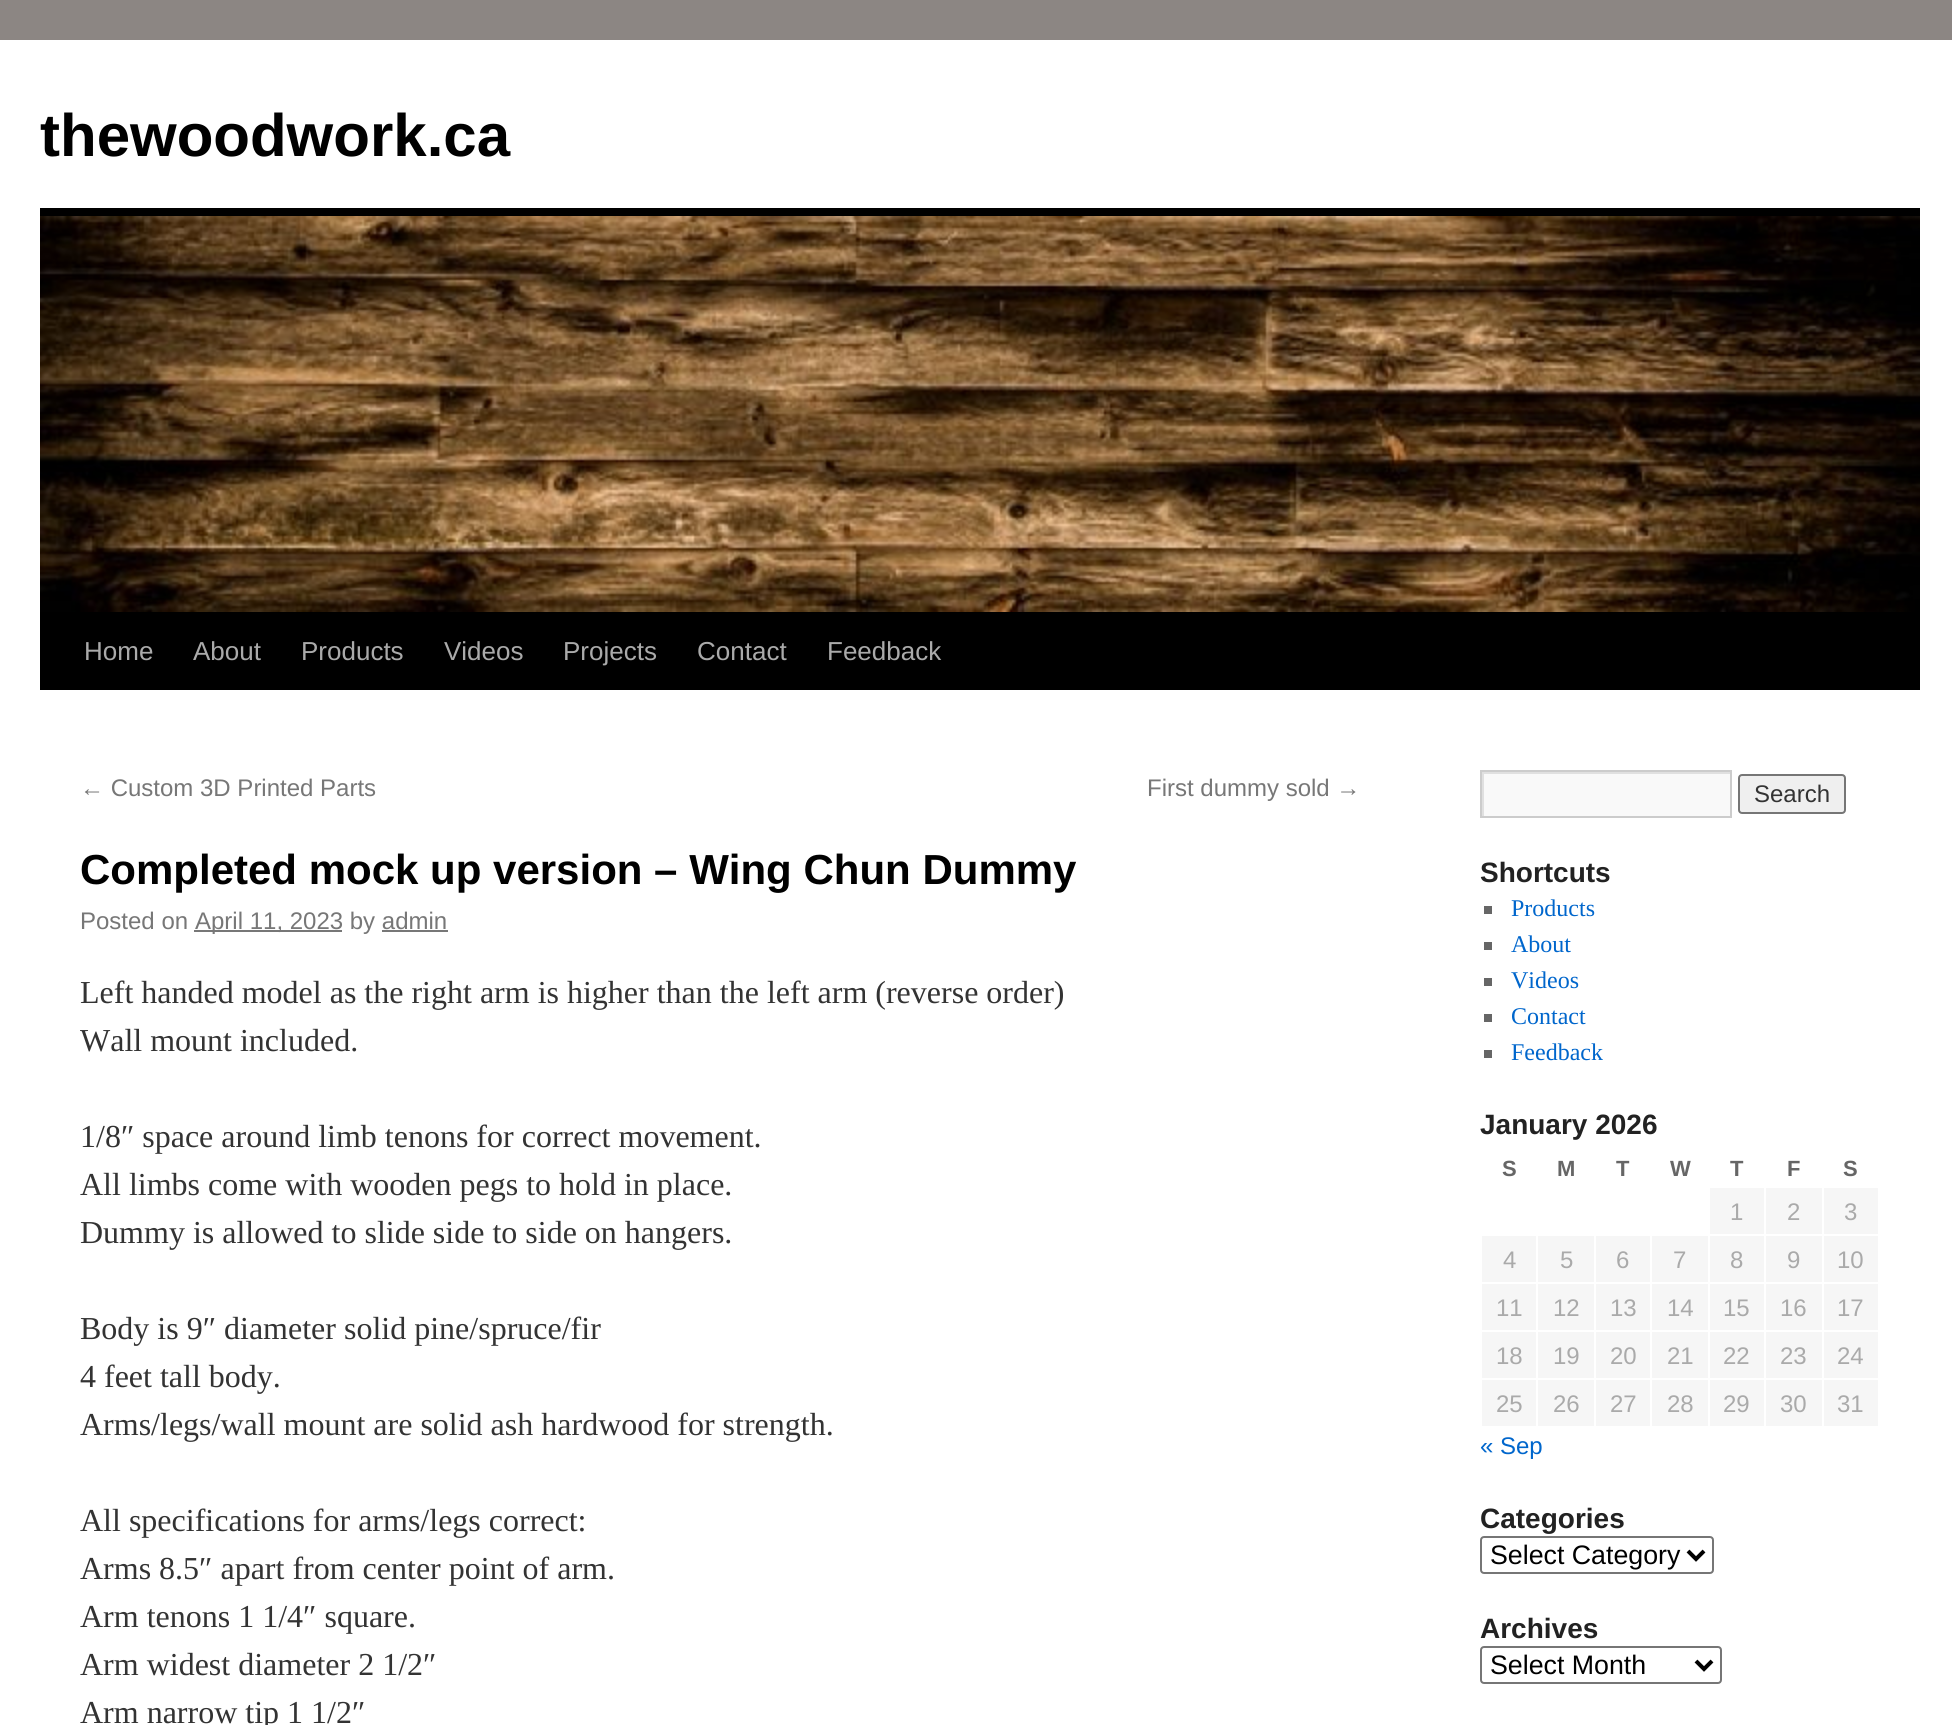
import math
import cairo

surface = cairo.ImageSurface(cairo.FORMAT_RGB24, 1952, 1725)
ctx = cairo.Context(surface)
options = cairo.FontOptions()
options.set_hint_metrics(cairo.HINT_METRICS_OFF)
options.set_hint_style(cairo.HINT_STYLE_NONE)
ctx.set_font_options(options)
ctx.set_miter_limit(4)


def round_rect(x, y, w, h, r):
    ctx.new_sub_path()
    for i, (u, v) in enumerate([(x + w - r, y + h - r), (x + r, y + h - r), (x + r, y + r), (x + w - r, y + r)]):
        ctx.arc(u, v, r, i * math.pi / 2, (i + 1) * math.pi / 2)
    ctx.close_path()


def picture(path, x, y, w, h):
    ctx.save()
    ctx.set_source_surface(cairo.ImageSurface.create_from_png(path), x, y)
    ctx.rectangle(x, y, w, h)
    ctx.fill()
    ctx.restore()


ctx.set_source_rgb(0.549, 0.525, 0.514)
ctx.paint()
ctx.set_source_rgb(1, 1, 1)
ctx.rectangle(0, 40, 1952, 1685)
ctx.fill()
ctx.select_font_face("Liberation Sans", cairo.FONT_SLANT_NORMAL, cairo.FONT_WEIGHT_BOLD)
ctx.set_font_size(60)
ctx.set_source_rgb(0, 0, 0)
ctx.move_to(40, 156)
ctx.show_text("thewoodwork.ca")
ctx.rectangle(40, 208, 1880, 8)
ctx.fill()
ctx.rectangle(40, 612, 1880, 78)
ctx.fill()
picture("img1.png", 40, 216, 1880, 396)
ctx.select_font_face("Liberation Sans")
ctx.set_font_size(26)
ctx.set_source_rgb(0.667, 0.667, 0.667)
ctx.move_to(84, 660)
ctx.show_text("Home")
ctx.move_to(193, 660)
ctx.show_text("About")
ctx.move_to(301, 660)
ctx.show_text("Products")
ctx.move_to(444, 660)
ctx.show_text("Videos")
ctx.move_to(563, 660)
ctx.show_text("Projects")
ctx.move_to(697, 660)
ctx.show_text("Contact")
ctx.move_to(827, 660)
ctx.show_text("Feedback")
ctx.set_font_size(24)
ctx.set_source_rgb(0.467, 0.467, 0.467)
ctx.move_to(80, 796)
ctx.show_text("← Custom 3D Printed Parts")
ctx.move_to(1147, 796)
ctx.show_text("First dummy sold →")
ctx.select_font_face("Liberation Sans", cairo.FONT_SLANT_NORMAL, cairo.FONT_WEIGHT_BOLD)
ctx.set_font_size(42)
ctx.set_source_rgb(0, 0, 0)
ctx.move_to(80, 884)
ctx.show_text("Completed mock up version – Wing Chun Dummy")
ctx.select_font_face("Liberation Sans")
ctx.set_font_size(24)
ctx.set_source_rgb(0.467, 0.467, 0.467)
ctx.move_to(80, 929)
ctx.show_text("Posted on")
ctx.rectangle(194, 930, 148, 2)
ctx.fill()
ctx.move_to(195, 929)
ctx.show_text("April 11, 2023 by admin")
ctx.rectangle(382, 930, 66, 2)
ctx.fill()
ctx.select_font_face("Liberation Serif")
ctx.set_font_size(32)
ctx.set_source_rgb(0.2, 0.2, 0.2)
ctx.move_to(80, 1003)
ctx.show_text("Left handed model as the right arm is higher than the left arm (reverse order)")
ctx.move_to(80, 1051)
ctx.show_text("Wall mount included.")
ctx.move_to(80, 1147)
ctx.show_text("1/8″ space around limb tenons for correct movement.")
ctx.move_to(80, 1195)
ctx.show_text("All limbs come with wooden pegs to hold in place.")
ctx.move_to(80, 1243)
ctx.show_text("Dummy is allowed to slide side to side on hangers.")
ctx.move_to(80, 1339)
ctx.show_text("Body is 9″ diameter solid pine/spruce/fir")
ctx.move_to(80, 1387)
ctx.show_text("4 feet tall body.")
ctx.move_to(80, 1435)
ctx.show_text("Arms/legs/wall mount are solid ash hardwood for strength.")
ctx.move_to(80, 1531)
ctx.show_text("All specifications for arms/legs correct:")
ctx.move_to(80, 1579)
ctx.show_text("Arms 8.5″ apart from center point of arm.")
ctx.move_to(80, 1627)
ctx.show_text("Arm tenons 1 1/4″ square.")
ctx.move_to(80, 1675)
ctx.show_text("Arm widest diameter 2 1/2″")
ctx.move_to(80, 1723)
ctx.show_text("Arm narrow tip 1 1/2″")
ctx.set_source_rgb(0.976, 0.976, 0.976)
ctx.rectangle(1484, 774, 246, 42)
ctx.fill()
ctx.save()
ctx.rectangle(1482, 772, 248, 44)
ctx.clip()
ctx.set_source_rgb(0.878, 0.878, 0.878)
ctx.set_fill_rule(cairo.FILL_RULE_EVEN_ODD)
ctx.new_path()
ctx.move_to(1284, 574)
ctx.line_to(1928, 574)
ctx.line_to(1928, 1014)
ctx.line_to(1284, 1014)
ctx.close_path()
ctx.move_to(1484, 774)
ctx.line_to(1732, 774)
ctx.line_to(1732, 818)
ctx.line_to(1484, 818)
ctx.close_path()
ctx.fill()
ctx.restore()
ctx.rectangle(1481, 771, 250, 46)
ctx.set_source_rgb(0.8, 0.8, 0.8)
ctx.stroke()
ctx.set_source_rgb(0.937, 0.937, 0.937)
round_rect(1739, 775, 106, 38, 3)
ctx.fill_preserve()
ctx.set_source_rgb(0.463, 0.463, 0.463)
ctx.stroke()
ctx.select_font_face("Liberation Sans")
ctx.set_font_size(24)
ctx.set_source_rgb(0.2, 0.2, 0.2)
ctx.move_to(1754, 802)
ctx.show_text("Search")
ctx.select_font_face("Liberation Sans", cairo.FONT_SLANT_NORMAL, cairo.FONT_WEIGHT_BOLD)
ctx.set_font_size(28)
ctx.set_source_rgb(0.133, 0.133, 0.133)
ctx.move_to(1480, 882)
ctx.show_text("Shortcuts")
ctx.set_source_rgb(0.4, 0.4, 0.4)
ctx.rectangle(1484, 906, 8, 8)
ctx.fill()
ctx.select_font_face("Liberation Serif")
ctx.set_font_size(24)
ctx.set_source_rgb(0, 0.4, 0.8)
ctx.move_to(1511, 916)
ctx.show_text("Products")
ctx.set_source_rgb(0.4, 0.4, 0.4)
ctx.rectangle(1484, 942, 8, 8)
ctx.fill()
ctx.set_source_rgb(0, 0.4, 0.8)
ctx.move_to(1511, 952)
ctx.show_text("About")
ctx.set_source_rgb(0.4, 0.4, 0.4)
ctx.rectangle(1484, 978, 8, 8)
ctx.fill()
ctx.set_source_rgb(0, 0.4, 0.8)
ctx.move_to(1511, 988)
ctx.show_text("Videos")
ctx.set_source_rgb(0.4, 0.4, 0.4)
ctx.rectangle(1484, 1014, 8, 8)
ctx.fill()
ctx.set_source_rgb(0, 0.4, 0.8)
ctx.move_to(1511, 1024)
ctx.show_text("Contact")
ctx.set_source_rgb(0.4, 0.4, 0.4)
ctx.rectangle(1484, 1050, 8, 8)
ctx.fill()
ctx.set_source_rgb(0, 0.4, 0.8)
ctx.move_to(1511, 1060)
ctx.show_text("Feedback")
ctx.select_font_face("Liberation Sans", cairo.FONT_SLANT_NORMAL, cairo.FONT_WEIGHT_BOLD)
ctx.set_font_size(28)
ctx.set_source_rgb(0.133, 0.133, 0.133)
ctx.move_to(1480, 1134)
ctx.show_text("January 2026")
ctx.set_font_size(22)
ctx.set_source_rgb(0.4, 0.4, 0.4)
ctx.move_to(1502, 1176)
ctx.show_text("S")
ctx.move_to(1557, 1176)
ctx.show_text("M")
ctx.move_to(1616, 1176)
ctx.show_text("T")
ctx.move_to(1670, 1176)
ctx.show_text("W")
ctx.move_to(1730, 1176)
ctx.show_text("T")
ctx.move_to(1787, 1176)
ctx.show_text("F")
ctx.move_to(1843, 1176)
ctx.show_text("S")
ctx.set_source_rgb(0.961, 0.961, 0.961)
ctx.rectangle(1710, 1188, 54, 46)
ctx.fill()
ctx.select_font_face("Liberation Sans")
ctx.set_font_size(24)
ctx.set_source_rgb(0.667, 0.667, 0.667)
ctx.move_to(1730, 1220)
ctx.show_text("1")
ctx.set_source_rgb(0.961, 0.961, 0.961)
ctx.rectangle(1766, 1188, 56, 46)
ctx.fill()
ctx.set_source_rgb(0.667, 0.667, 0.667)
ctx.move_to(1787, 1220)
ctx.show_text("2")
ctx.set_source_rgb(0.961, 0.961, 0.961)
ctx.rectangle(1824, 1188, 54, 46)
ctx.fill()
ctx.set_source_rgb(0.667, 0.667, 0.667)
ctx.move_to(1844, 1220)
ctx.show_text("3")
ctx.set_source_rgb(0.961, 0.961, 0.961)
ctx.rectangle(1482, 1236, 54, 46)
ctx.fill()
ctx.set_source_rgb(0.667, 0.667, 0.667)
ctx.move_to(1503, 1268)
ctx.show_text("4")
ctx.set_source_rgb(0.961, 0.961, 0.961)
ctx.rectangle(1538, 1236, 56, 46)
ctx.fill()
ctx.set_source_rgb(0.667, 0.667, 0.667)
ctx.move_to(1560, 1268)
ctx.show_text("5")
ctx.set_source_rgb(0.961, 0.961, 0.961)
ctx.rectangle(1596, 1236, 54, 46)
ctx.fill()
ctx.set_source_rgb(0.667, 0.667, 0.667)
ctx.move_to(1616, 1268)
ctx.show_text("6")
ctx.set_source_rgb(0.961, 0.961, 0.961)
ctx.rectangle(1652, 1236, 56, 46)
ctx.fill()
ctx.set_source_rgb(0.667, 0.667, 0.667)
ctx.move_to(1673, 1268)
ctx.show_text("7")
ctx.set_source_rgb(0.961, 0.961, 0.961)
ctx.rectangle(1710, 1236, 54, 46)
ctx.fill()
ctx.set_source_rgb(0.667, 0.667, 0.667)
ctx.move_to(1730, 1268)
ctx.show_text("8")
ctx.set_source_rgb(0.961, 0.961, 0.961)
ctx.rectangle(1766, 1236, 56, 46)
ctx.fill()
ctx.set_source_rgb(0.667, 0.667, 0.667)
ctx.move_to(1787, 1268)
ctx.show_text("9")
ctx.set_source_rgb(0.961, 0.961, 0.961)
ctx.rectangle(1824, 1236, 54, 46)
ctx.fill()
ctx.set_source_rgb(0.667, 0.667, 0.667)
ctx.move_to(1837, 1268)
ctx.show_text("10")
ctx.set_source_rgb(0.961, 0.961, 0.961)
ctx.rectangle(1482, 1284, 54, 46)
ctx.fill()
ctx.set_source_rgb(0.667, 0.667, 0.667)
ctx.move_to(1496, 1316)
ctx.show_text("11")
ctx.set_source_rgb(0.961, 0.961, 0.961)
ctx.rectangle(1538, 1284, 56, 46)
ctx.fill()
ctx.set_source_rgb(0.667, 0.667, 0.667)
ctx.move_to(1553, 1316)
ctx.show_text("12")
ctx.set_source_rgb(0.961, 0.961, 0.961)
ctx.rectangle(1596, 1284, 54, 46)
ctx.fill()
ctx.set_source_rgb(0.667, 0.667, 0.667)
ctx.move_to(1610, 1316)
ctx.show_text("13")
ctx.set_source_rgb(0.961, 0.961, 0.961)
ctx.rectangle(1652, 1284, 56, 46)
ctx.fill()
ctx.set_source_rgb(0.667, 0.667, 0.667)
ctx.move_to(1667, 1316)
ctx.show_text("14")
ctx.set_source_rgb(0.961, 0.961, 0.961)
ctx.rectangle(1710, 1284, 54, 46)
ctx.fill()
ctx.set_source_rgb(0.667, 0.667, 0.667)
ctx.move_to(1723, 1316)
ctx.show_text("15")
ctx.set_source_rgb(0.961, 0.961, 0.961)
ctx.rectangle(1766, 1284, 56, 46)
ctx.fill()
ctx.set_source_rgb(0.667, 0.667, 0.667)
ctx.move_to(1780, 1316)
ctx.show_text("16")
ctx.set_source_rgb(0.961, 0.961, 0.961)
ctx.rectangle(1824, 1284, 54, 46)
ctx.fill()
ctx.set_source_rgb(0.667, 0.667, 0.667)
ctx.move_to(1837, 1316)
ctx.show_text("17")
ctx.set_source_rgb(0.961, 0.961, 0.961)
ctx.rectangle(1482, 1332, 54, 46)
ctx.fill()
ctx.set_source_rgb(0.667, 0.667, 0.667)
ctx.move_to(1496, 1364)
ctx.show_text("18")
ctx.set_source_rgb(0.961, 0.961, 0.961)
ctx.rectangle(1538, 1332, 56, 46)
ctx.fill()
ctx.set_source_rgb(0.667, 0.667, 0.667)
ctx.move_to(1553, 1364)
ctx.show_text("19")
ctx.set_source_rgb(0.961, 0.961, 0.961)
ctx.rectangle(1596, 1332, 54, 46)
ctx.fill()
ctx.set_source_rgb(0.667, 0.667, 0.667)
ctx.move_to(1610, 1364)
ctx.show_text("20")
ctx.set_source_rgb(0.961, 0.961, 0.961)
ctx.rectangle(1652, 1332, 56, 46)
ctx.fill()
ctx.set_source_rgb(0.667, 0.667, 0.667)
ctx.move_to(1667, 1364)
ctx.show_text("21")
ctx.set_source_rgb(0.961, 0.961, 0.961)
ctx.rectangle(1710, 1332, 54, 46)
ctx.fill()
ctx.set_source_rgb(0.667, 0.667, 0.667)
ctx.move_to(1723, 1364)
ctx.show_text("22")
ctx.set_source_rgb(0.961, 0.961, 0.961)
ctx.rectangle(1766, 1332, 56, 46)
ctx.fill()
ctx.set_source_rgb(0.667, 0.667, 0.667)
ctx.move_to(1780, 1364)
ctx.show_text("23")
ctx.set_source_rgb(0.961, 0.961, 0.961)
ctx.rectangle(1824, 1332, 54, 46)
ctx.fill()
ctx.set_source_rgb(0.667, 0.667, 0.667)
ctx.move_to(1837, 1364)
ctx.show_text("24")
ctx.set_source_rgb(0.961, 0.961, 0.961)
ctx.rectangle(1482, 1380, 54, 46)
ctx.fill()
ctx.set_source_rgb(0.667, 0.667, 0.667)
ctx.move_to(1496, 1412)
ctx.show_text("25")
ctx.set_source_rgb(0.961, 0.961, 0.961)
ctx.rectangle(1538, 1380, 56, 46)
ctx.fill()
ctx.set_source_rgb(0.667, 0.667, 0.667)
ctx.move_to(1553, 1412)
ctx.show_text("26")
ctx.set_source_rgb(0.961, 0.961, 0.961)
ctx.rectangle(1596, 1380, 54, 46)
ctx.fill()
ctx.set_source_rgb(0.667, 0.667, 0.667)
ctx.move_to(1610, 1412)
ctx.show_text("27")
ctx.set_source_rgb(0.961, 0.961, 0.961)
ctx.rectangle(1652, 1380, 56, 46)
ctx.fill()
ctx.set_source_rgb(0.667, 0.667, 0.667)
ctx.move_to(1667, 1412)
ctx.show_text("28")
ctx.set_source_rgb(0.961, 0.961, 0.961)
ctx.rectangle(1710, 1380, 54, 46)
ctx.fill()
ctx.set_source_rgb(0.667, 0.667, 0.667)
ctx.move_to(1723, 1412)
ctx.show_text("29")
ctx.set_source_rgb(0.961, 0.961, 0.961)
ctx.rectangle(1766, 1380, 56, 46)
ctx.fill()
ctx.set_source_rgb(0.667, 0.667, 0.667)
ctx.move_to(1780, 1412)
ctx.show_text("30")
ctx.set_source_rgb(0.961, 0.961, 0.961)
ctx.rectangle(1824, 1380, 54, 46)
ctx.fill()
ctx.set_source_rgb(0.667, 0.667, 0.667)
ctx.move_to(1837, 1412)
ctx.show_text("31")
ctx.set_source_rgb(0, 0.4, 0.8)
ctx.move_to(1480, 1454)
ctx.show_text("« Sep")
ctx.select_font_face("Liberation Sans", cairo.FONT_SLANT_NORMAL, cairo.FONT_WEIGHT_BOLD)
ctx.set_font_size(28)
ctx.set_source_rgb(0.133, 0.133, 0.133)
ctx.move_to(1480, 1528)
ctx.show_text("Categories")
round_rect(1481, 1537, 232, 36, 3)
ctx.set_source_rgb(0.463, 0.463, 0.463)
ctx.stroke()
ctx.new_path()
ctx.move_to(1688, 1551)
ctx.line_to(1696, 1559)
ctx.line_to(1704, 1551)
ctx.set_source_rgb(0, 0, 0)
ctx.set_line_width(4)
ctx.stroke()
ctx.select_font_face("Liberation Sans")
ctx.set_font_size(26.75)
ctx.move_to(1490, 1564)
ctx.show_text("Select Category")
ctx.select_font_face("Liberation Sans", cairo.FONT_SLANT_NORMAL, cairo.FONT_WEIGHT_BOLD)
ctx.set_font_size(28)
ctx.set_source_rgb(0.133, 0.133, 0.133)
ctx.move_to(1480, 1638)
ctx.show_text("Archives")
round_rect(1481, 1647, 240, 36, 3)
ctx.set_source_rgb(0.463, 0.463, 0.463)
ctx.set_line_width(2)
ctx.stroke()
ctx.new_path()
ctx.move_to(1696, 1661)
ctx.line_to(1704, 1669)
ctx.line_to(1712, 1661)
ctx.set_source_rgb(0, 0, 0)
ctx.set_line_width(4)
ctx.stroke()
ctx.select_font_face("Liberation Sans")
ctx.set_font_size(26.75)
ctx.move_to(1490, 1674)
ctx.show_text("Select Month")
surface.write_to_png("page.png")
